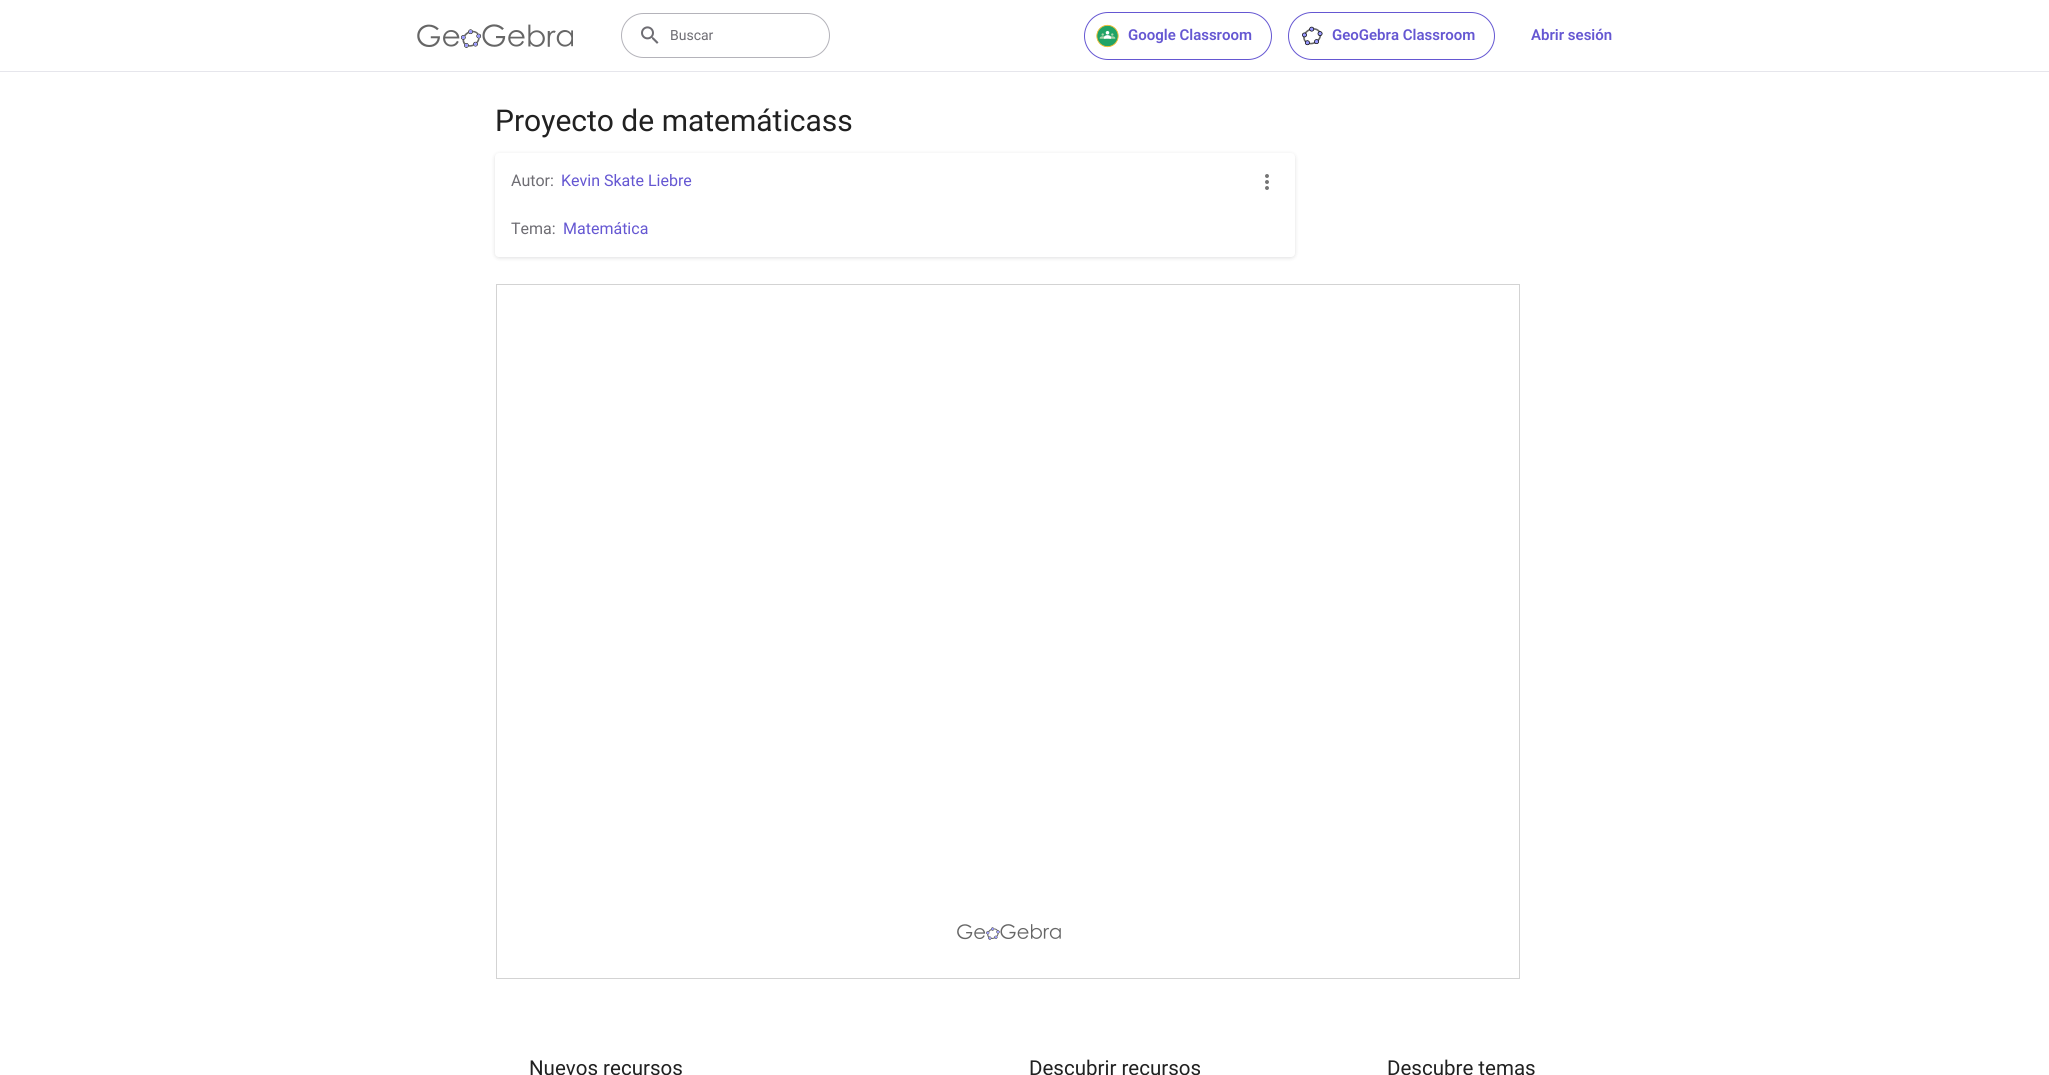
import math
import cairo

surface = cairo.ImageSurface(cairo.FORMAT_RGB24, 2049, 1075)
ctx = cairo.Context(surface)
options = cairo.FontOptions()
options.set_hint_metrics(cairo.HINT_METRICS_OFF)
options.set_hint_style(cairo.HINT_STYLE_NONE)
ctx.set_font_options(options)
ctx.set_miter_limit(4)


def round_rect(x, y, w, h, r):
    ctx.new_sub_path()
    for i, (u, v) in enumerate([(x + w - r, y + h - r), (x + r, y + h - r), (x + r, y + r), (x + w - r, y + r)]):
        ctx.arc(u, v, r, i * math.pi / 2, (i + 1) * math.pi / 2)
    ctx.close_path()


def shadow(x, y, w, h, r, blur, alpha):
    ctx.push_group_with_content(cairo.CONTENT_ALPHA)
    ctx.set_operator(cairo.OPERATOR_SOURCE)
    for i in range(15, -16, -2):
        e = blur * i / 6
        if min(w, h) + 2 * e > 0:
            ctx.set_source_rgba(0, 0, 0, alpha * math.erfc((i - 1) / 8.5) / 2)
            round_rect(x - e, y - e, w + 2 * e, h + 2 * e, max(0, min(r + e + blur * .6, min(w, h) / 2 + e)))
            ctx.fill()
    ctx.mask(ctx.pop_group())


def picture(path, x, y, w, h):
    ctx.save()
    ctx.set_source_surface(cairo.ImageSurface.create_from_png(path), x, y)
    ctx.rectangle(x, y, w, h)
    ctx.fill()
    ctx.restore()


ctx.set_source_rgb(1, 1, 1)
ctx.paint()
ctx.set_source_rgb(0.902, 0.902, 0.922)
ctx.rectangle(0, 71, 2049, 1)
ctx.fill()
picture("img1.png", 417, 24, 156, 24)
round_rect(621.5, 13.5, 208, 44, 22)
ctx.set_source_rgb(0.706, 0.702, 0.729)
ctx.set_line_width(1)
ctx.stroke()
picture("img2.png", 641, 26, 18, 18)
ctx.select_font_face("Roboto")
ctx.set_font_size(14)
ctx.set_source_rgb(0.431, 0.427, 0.451)
ctx.move_to(670, 40)
ctx.show_text("Buscar")
round_rect(1084.5, 12.5, 187, 47, 23.5)
ctx.set_source_rgb(0.396, 0.341, 0.824)
ctx.stroke()
picture("img3.png", 1096, 24, 23, 24)
ctx.select_font_face("Roboto SemiBold")
ctx.set_font_size(15)
ctx.move_to(1128, 40)
ctx.show_text("Google Classroom")
round_rect(1288.5, 12.5, 206, 47, 23.5)
ctx.stroke()
picture("img4.png", 1302, 26, 21, 20)
ctx.move_to(1332, 40)
ctx.show_text("GeoGebra Classroom")
ctx.move_to(1531, 40)
ctx.show_text("Abrir sesión")
ctx.select_font_face("Roboto")
ctx.set_font_size(30)
ctx.set_source_rgb(0.129, 0.129, 0.129)
ctx.move_to(495, 131)
ctx.show_text("Proyecto de matemáticass")
ctx.set_source_rgb(0.11, 0.11, 0.122)
shadow(495, 154, 800, 104, 4, 2, 0.14)
ctx.set_source_rgb(1, 1, 1)
round_rect(495, 153, 800, 104, 4)
ctx.fill()
ctx.set_font_size(16)
ctx.set_source_rgb(0.431, 0.427, 0.451)
ctx.move_to(511, 186)
ctx.show_text("Autor:")
ctx.set_source_rgb(0.396, 0.341, 0.824)
ctx.move_to(561, 186)
ctx.show_text("Kevin Skate Liebre")
ctx.set_source_rgb(0.431, 0.427, 0.451)
ctx.move_to(511, 234)
ctx.show_text("Tema:")
ctx.set_source_rgb(0.396, 0.341, 0.824)
ctx.move_to(563, 234)
ctx.show_text("Matemática")
picture("img5.png", 1265, 174, 4, 16)
picture("img6.png", 957, 924, 104, 16)
ctx.rectangle(496.5, 284.5, 1023, 694)
ctx.set_source_rgb(0.827, 0.827, 0.827)
ctx.stroke()
ctx.set_font_size(20.5)
ctx.set_source_rgb(0.129, 0.129, 0.129)
ctx.move_to(529, 1075)
ctx.show_text("Nuevos recursos")
ctx.move_to(1029, 1075)
ctx.show_text("Descubrir recursos")
ctx.move_to(1387, 1075)
ctx.show_text("Descubre temas")
surface.write_to_png("page.png")
